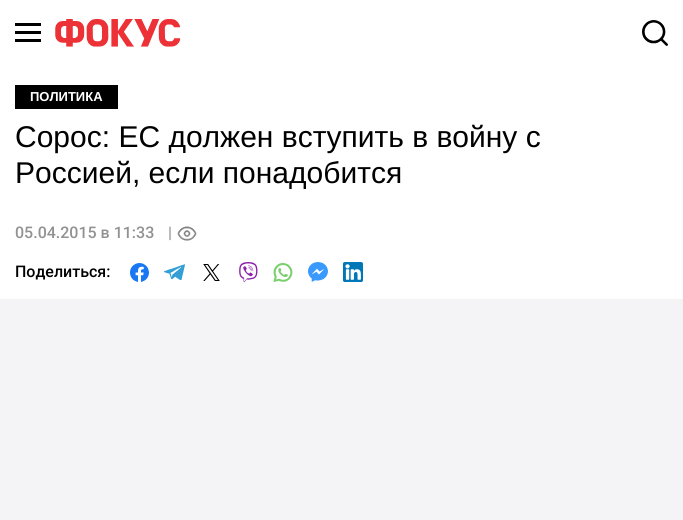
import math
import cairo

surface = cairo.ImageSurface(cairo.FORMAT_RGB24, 683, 520)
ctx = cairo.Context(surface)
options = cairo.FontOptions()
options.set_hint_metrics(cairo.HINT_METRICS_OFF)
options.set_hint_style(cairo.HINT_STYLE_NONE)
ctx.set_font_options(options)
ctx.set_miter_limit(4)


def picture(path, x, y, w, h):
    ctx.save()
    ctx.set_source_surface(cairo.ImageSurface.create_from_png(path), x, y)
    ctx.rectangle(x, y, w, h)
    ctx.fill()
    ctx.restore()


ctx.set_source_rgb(1, 1, 1)
ctx.paint()
ctx.set_source_rgb(0, 0, 0)
ctx.rectangle(15, 23, 26, 3)
ctx.fill()
ctx.rectangle(15, 31, 26, 3)
ctx.fill()
ctx.rectangle(15, 39, 26, 3)
ctx.fill()
picture("img1.png", 55, 19, 126, 28)
picture("img2.png", 642, 20, 26, 26)
ctx.rectangle(15, 85, 103, 24)
ctx.fill()
ctx.select_font_face("Liberation Sans", cairo.FONT_SLANT_NORMAL, cairo.FONT_WEIGHT_BOLD)
ctx.set_font_size(13)
ctx.set_source_rgb(1, 1, 1)
ctx.move_to(30, 101)
ctx.show_text("ПОЛИТИКА")
ctx.select_font_face("Liberation Sans")
ctx.set_font_size(30)
ctx.set_source_rgb(0, 0, 0)
ctx.move_to(15, 147)
ctx.show_text("Сорос: ЕС должен вступить в войну с")
ctx.move_to(15, 183)
ctx.show_text("Россией, если понадобится")
ctx.select_font_face("Roboto Medium")
ctx.set_font_size(16)
ctx.set_source_rgb(0.573, 0.573, 0.573)
ctx.move_to(15, 238)
ctx.show_text("05.04.2015 в 11:33")
ctx.move_to(168, 238)
ctx.show_text("|")
picture("img3.png", 177, 226, 20, 15)
ctx.set_source_rgb(0, 0, 0)
ctx.move_to(15, 277)
ctx.show_text("Поделиться:")
picture("img4.png", 130, 263, 19, 19)
picture("img5.png", 164, 264, 21, 16)
picture("img6.png", 203, 264, 17, 17)
picture("img7.png", 239, 262, 19, 20)
picture("img8.png", 273, 263, 20, 19)
picture("img9.png", 308, 262, 20, 20)
picture("img10.png", 343, 262, 20, 20)
ctx.set_source_rgb(0.957, 0.957, 0.961)
ctx.rectangle(0, 299, 683, 221)
ctx.fill()
surface.write_to_png("page.png")
